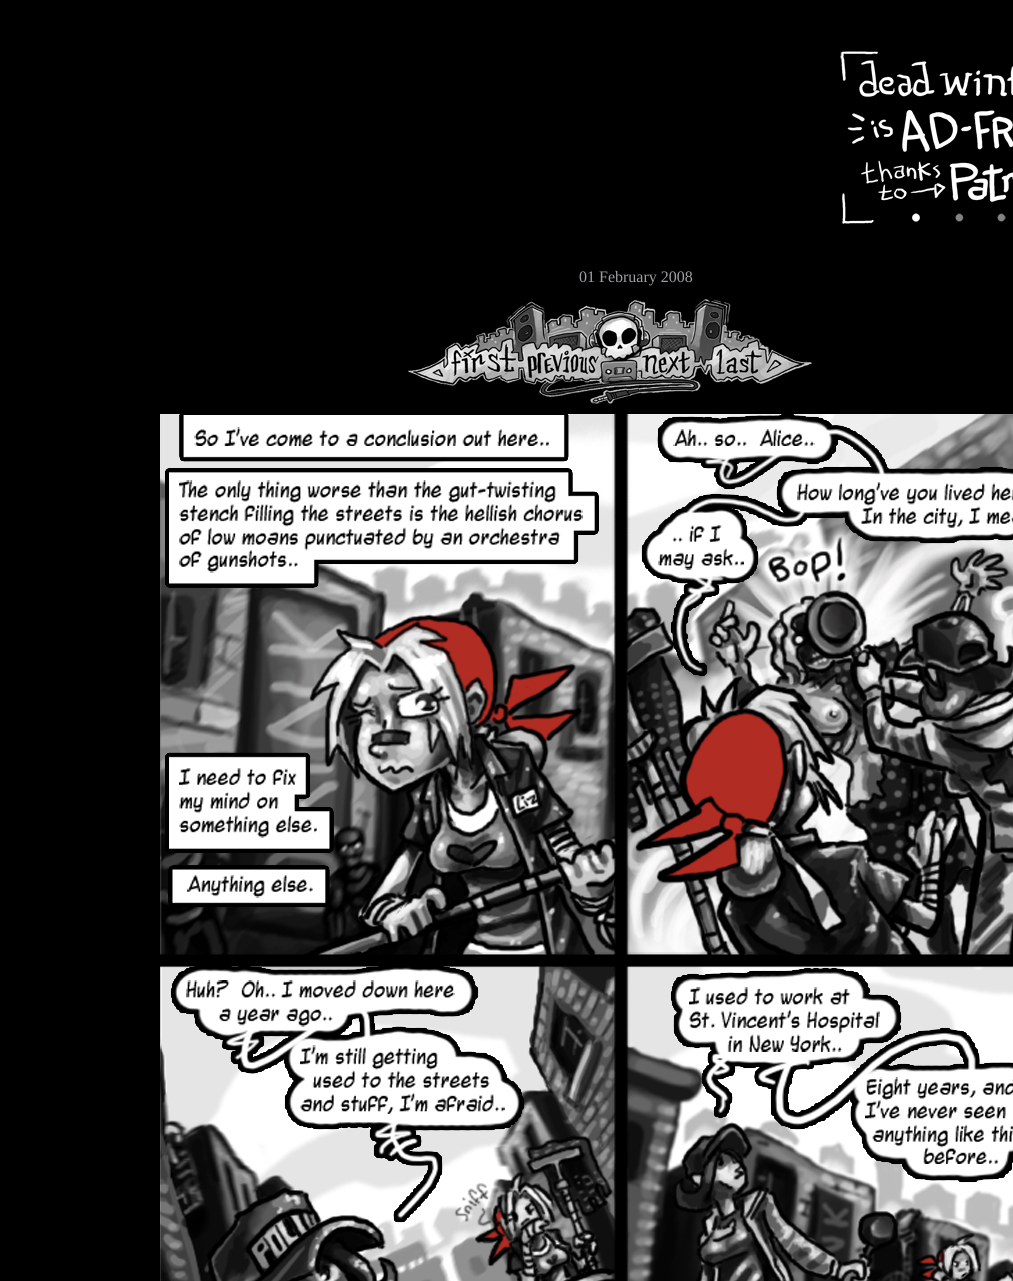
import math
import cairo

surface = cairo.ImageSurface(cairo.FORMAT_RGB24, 1013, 1281)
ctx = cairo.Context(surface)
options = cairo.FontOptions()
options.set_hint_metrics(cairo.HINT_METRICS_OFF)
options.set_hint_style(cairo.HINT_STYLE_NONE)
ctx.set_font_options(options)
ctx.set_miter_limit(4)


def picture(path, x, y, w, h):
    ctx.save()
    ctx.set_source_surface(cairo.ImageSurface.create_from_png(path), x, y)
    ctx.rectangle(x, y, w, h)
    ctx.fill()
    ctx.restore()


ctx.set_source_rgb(0, 0, 0)
ctx.paint()
picture("img1.png", 840, 51, 173, 173)
ctx.select_font_face("Liberation Serif")
ctx.set_font_size(16)
ctx.set_source_rgb(0.627, 0.627, 0.643)
ctx.move_to(579, 282)
ctx.show_text("01 February 2008")
picture("img2.png", 408, 299, 404, 105)
picture("img3.png", 160, 414, 853, 867)
surface.write_to_png("page.png")
